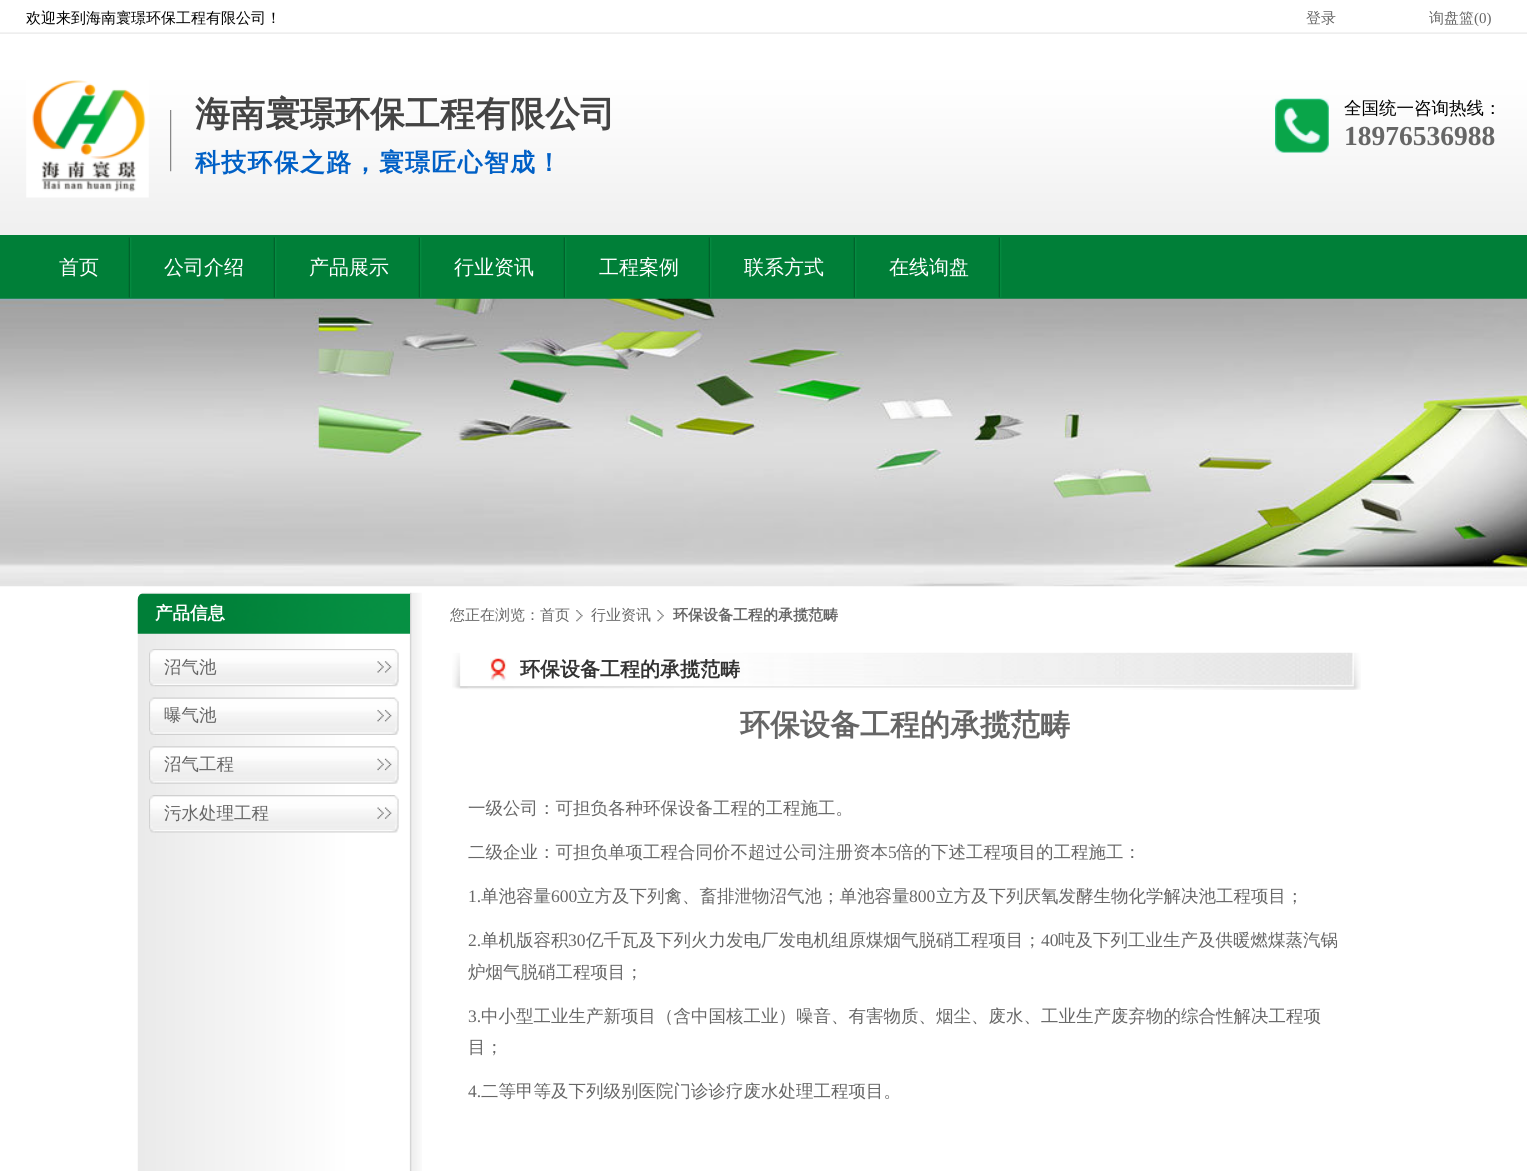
import math
import cairo

surface = cairo.ImageSurface(cairo.FORMAT_RGB24, 1527, 1171)
ctx = cairo.Context(surface)
options = cairo.FontOptions()
options.set_hint_metrics(cairo.HINT_METRICS_OFF)
options.set_hint_style(cairo.HINT_STYLE_NONE)
ctx.set_font_options(options)
ctx.set_miter_limit(4)


def spaced_text(x, y, s, letter, word):
    ctx.move_to(x, y)
    for ch in s:
        ctx.show_text(ch)
        ctx.rel_move_to(letter + word * (ch == ' '), 0)


def picture(path, x, y, w, h):
    ctx.save()
    ctx.set_source_surface(cairo.ImageSurface.create_from_png(path), x, y)
    ctx.rectangle(x, y, w, h)
    ctx.fill()
    ctx.restore()


ctx.set_source_rgb(1, 1, 1)
ctx.paint()
picture("img1.png", 0, 32, 1527, 203)
ctx.select_font_face("WenQuanYi Zen Hei Medium")
ctx.set_font_size(15)
ctx.set_source_rgb(0, 0, 0)
ctx.move_to(26, 23)
ctx.show_text("欢迎来到海南寰璟环保工程有限公司！")
ctx.set_source_rgb(0.4, 0.4, 0.4)
ctx.move_to(1306, 23)
ctx.show_text("登录")
ctx.move_to(1429, 23)
ctx.show_text("询盘篮")
ctx.select_font_face("Liberation Serif")
ctx.move_to(1474, 23)
ctx.show_text("(0)")
picture("img2.png", 170, 110, 2, 62)
picture("img3.png", 26, 80, 123, 118)
ctx.select_font_face("WenQuanYi Zen Hei", cairo.FONT_SLANT_NORMAL, cairo.FONT_WEIGHT_BOLD)
ctx.set_font_size(35)
ctx.set_source_rgb(0.267, 0.267, 0.267)
ctx.move_to(195, 126)
ctx.show_text("海南寰璟环保工程有限公司")
ctx.set_font_size(25)
ctx.set_source_rgb(0, 0.376, 0.776)
spaced_text(195, 171, "科技环保之路，寰璟匠心智成！", 1.25, 0)
picture("img4.png", 1275, 98, 54, 55)
ctx.select_font_face("WenQuanYi Zen Hei Medium")
ctx.set_font_size(17.5)
ctx.set_source_rgb(0, 0, 0)
ctx.move_to(1344, 114)
ctx.show_text("全国统一咨询热线：")
ctx.select_font_face("Liberation Serif", cairo.FONT_SLANT_NORMAL, cairo.FONT_WEIGHT_BOLD)
ctx.set_font_size(27.5)
ctx.set_source_rgb(0.4, 0.4, 0.4)
ctx.move_to(1344, 145)
ctx.show_text("18976536988")
ctx.set_source_rgb(0, 0.498, 0.22)
ctx.rectangle(0, 235, 1527, 64)
ctx.fill()
picture("img5.png", 128, 237, 4, 61)
ctx.select_font_face("WenQuanYi Zen Hei Medium")
ctx.set_font_size(20)
ctx.set_source_rgb(1, 1, 1)
ctx.move_to(59, 274)
ctx.show_text("首页")
picture("img5.png", 273, 237, 4, 61)
ctx.move_to(164, 274)
ctx.show_text("公司介绍")
picture("img5.png", 418, 237, 4, 61)
ctx.move_to(309, 274)
ctx.show_text("产品展示")
picture("img5.png", 563, 237, 4, 61)
ctx.move_to(454, 274)
ctx.show_text("行业资讯")
picture("img5.png", 708, 237, 4, 61)
ctx.move_to(599, 274)
ctx.show_text("工程案例")
picture("img5.png", 853, 237, 4, 61)
ctx.move_to(744, 274)
ctx.show_text("联系方式")
picture("img5.png", 998, 237, 4, 61)
ctx.move_to(889, 274)
ctx.show_text("在线询盘")
picture("img6.png", 0, 298, 1527, 289)
picture("img7.png", 137, 592, 285, 579)
picture("img8.png", 137, 593, 273, 41)
ctx.select_font_face("WenQuanYi Zen Hei", cairo.FONT_SLANT_NORMAL, cairo.FONT_WEIGHT_BOLD)
ctx.set_font_size(17.5)
ctx.move_to(155, 619)
ctx.show_text("产品信息")
picture("img9.png", 149, 649, 250, 38)
ctx.select_font_face("WenQuanYi Zen Hei Medium")
ctx.set_source_rgb(0.4, 0.4, 0.4)
ctx.move_to(164, 673)
ctx.show_text("沼气池")
picture("img10.png", 149, 697, 250, 38)
ctx.move_to(164, 721)
ctx.show_text("曝气池")
picture("img11.png", 149, 746, 250, 38)
ctx.move_to(164, 770)
ctx.show_text("沼气工程")
picture("img12.png", 149, 795, 250, 38)
ctx.move_to(164, 819)
ctx.show_text("污水处理工程")
ctx.set_font_size(15)
ctx.move_to(450, 620)
ctx.show_text("您正在浏览：首页")
picture("img13.png", 576, 610, 7, 12)
ctx.move_to(591, 620)
ctx.show_text("行业资讯")
picture("img14.png", 657, 610, 7, 12)
ctx.select_font_face("WenQuanYi Zen Hei", cairo.FONT_SLANT_NORMAL, cairo.FONT_WEIGHT_BOLD)
ctx.move_to(673, 620)
ctx.show_text("环保设备工程的承揽范畴")
picture("img15.png", 452, 652, 909, 38)
picture("img16.png", 490, 658, 17, 23)
ctx.set_font_size(20)
ctx.set_source_rgb(0.2, 0.2, 0.2)
ctx.move_to(520, 676)
ctx.show_text("环保设备工程的承揽范畴")
ctx.set_font_size(30)
ctx.set_source_rgb(0.4, 0.4, 0.4)
ctx.move_to(740, 735)
ctx.show_text("环保设备工程的承揽范畴")
ctx.select_font_face("WenQuanYi Zen Hei Medium")
ctx.set_font_size(17.5)
ctx.move_to(468, 814)
ctx.show_text("一级公司：可担负各种环保设备工程的工程施工。")
ctx.move_to(468, 858)
ctx.show_text("二级企业：可担负单项工程合同价不超过公司注册资本")
ctx.select_font_face("Liberation Serif")
ctx.move_to(888, 858)
ctx.show_text("5")
ctx.select_font_face("WenQuanYi Zen Hei Medium")
ctx.move_to(896, 858)
ctx.show_text("倍的下述工程项目的工程施工：")
ctx.select_font_face("Liberation Serif")
ctx.move_to(468, 902)
ctx.show_text("1.")
ctx.select_font_face("WenQuanYi Zen Hei Medium")
ctx.move_to(481, 902)
ctx.show_text("单池容量")
ctx.select_font_face("Liberation Serif")
ctx.move_to(551, 902)
ctx.show_text("600")
ctx.select_font_face("WenQuanYi Zen Hei Medium")
ctx.move_to(577, 902)
ctx.show_text("立方及下列禽、畜排泄物沼气池；单池容量")
ctx.select_font_face("Liberation Serif")
ctx.move_to(909, 902)
ctx.show_text("800")
ctx.select_font_face("WenQuanYi Zen Hei Medium")
ctx.move_to(936, 902)
ctx.show_text("立方及下列厌氧发酵生物化学解决池工程项目；")
ctx.select_font_face("Liberation Serif")
ctx.move_to(468, 946)
ctx.show_text("2.")
ctx.select_font_face("WenQuanYi Zen Hei Medium")
ctx.move_to(481, 946)
ctx.show_text("单机版容积")
ctx.select_font_face("Liberation Serif")
ctx.move_to(568, 946)
ctx.show_text("30")
ctx.select_font_face("WenQuanYi Zen Hei Medium")
ctx.move_to(586, 946)
ctx.show_text("亿千瓦及下列火力发电厂发电机组原煤烟气脱硝工程项目；")
ctx.select_font_face("Liberation Serif")
ctx.move_to(1041, 946)
ctx.show_text("40")
ctx.select_font_face("WenQuanYi Zen Hei Medium")
ctx.move_to(1058, 946)
ctx.show_text("吨及下列工业生产及供暖燃煤蒸汽锅")
ctx.move_to(468, 978)
ctx.show_text("炉烟气脱硝工程项目；")
ctx.select_font_face("Liberation Serif")
ctx.move_to(468, 1022)
ctx.show_text("3.")
ctx.select_font_face("WenQuanYi Zen Hei Medium")
ctx.move_to(481, 1022)
ctx.show_text("中小型工业生产新项目（含中国核工业）噪音、有害物质、烟尘、废水、工业生产废弃物的综合性解决工程项")
ctx.move_to(468, 1053)
ctx.show_text("目；")
ctx.select_font_face("Liberation Serif")
ctx.move_to(468, 1097)
ctx.show_text("4.")
ctx.select_font_face("WenQuanYi Zen Hei Medium")
ctx.move_to(481, 1097)
ctx.show_text("二等甲等及下列级别医院门诊诊疗废水处理工程项目。")
surface.write_to_png("page.png")
